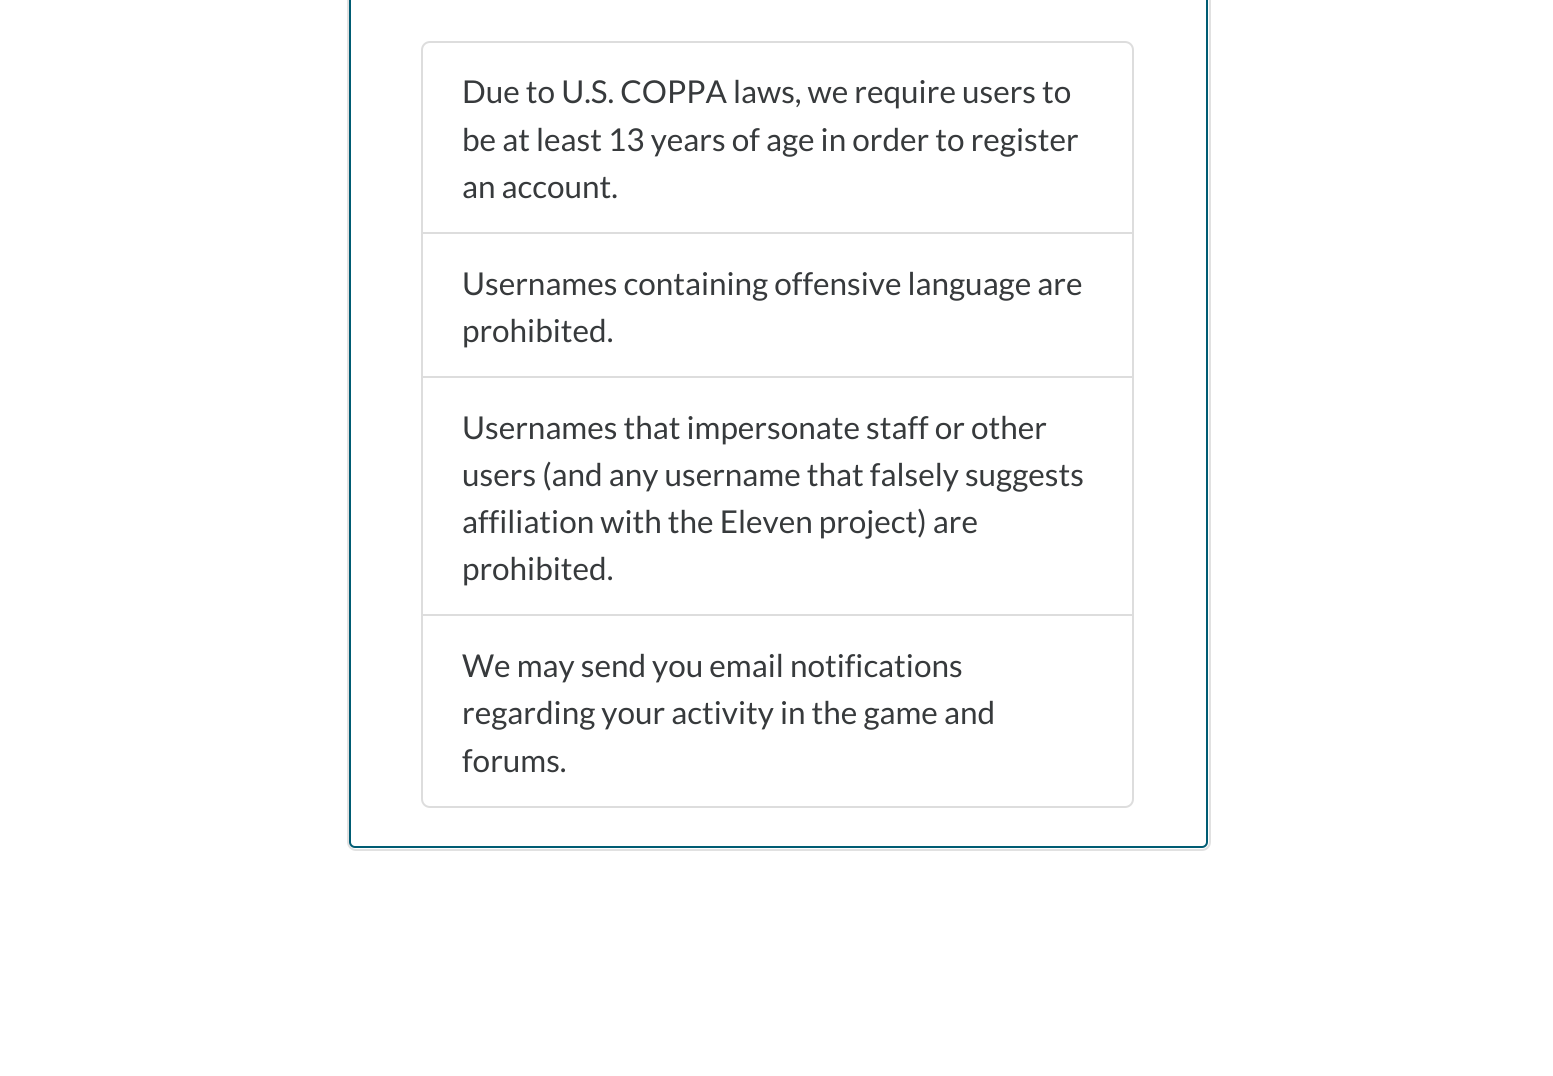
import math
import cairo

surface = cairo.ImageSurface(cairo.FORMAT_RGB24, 1553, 1076)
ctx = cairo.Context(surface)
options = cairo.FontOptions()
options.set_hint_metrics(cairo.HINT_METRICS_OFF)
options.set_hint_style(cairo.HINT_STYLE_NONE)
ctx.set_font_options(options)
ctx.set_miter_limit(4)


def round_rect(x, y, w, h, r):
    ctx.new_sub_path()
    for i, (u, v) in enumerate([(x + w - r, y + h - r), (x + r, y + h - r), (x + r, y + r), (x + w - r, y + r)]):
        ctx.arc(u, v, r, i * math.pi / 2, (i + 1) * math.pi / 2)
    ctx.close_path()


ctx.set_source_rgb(1, 1, 1)
ctx.paint()
round_rect(350, -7, 857, 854, 5)
ctx.set_source_rgb(0, 0.361, 0.451)
ctx.stroke()
round_rect(348, -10, 862, 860, 8)
ctx.set_source_rgba(0, 0, 0, 0.12)
ctx.stroke()
ctx.new_path()
ctx.move_to(430, 42)
ctx.line_to(1125, 42)
ctx.curve_to(1129.5, 42, 1133, 45.5, 1133, 50)
ctx.line_to(1133, 233)
ctx.line_to(422, 233)
ctx.line_to(422, 50)
ctx.curve_to(422, 45.5, 425.5, 42, 430, 42)
ctx.close_path()
ctx.set_source_rgb(0.867, 0.867, 0.867)
ctx.stroke()
ctx.select_font_face("Lato")
ctx.set_font_size(31.5)
ctx.set_source_rgb(0.216, 0.227, 0.235)
ctx.move_to(462, 103)
ctx.show_text("Due to U.S. COPPA laws, we require users to")
ctx.move_to(462, 151)
ctx.show_text("be at least 13 years of age in order to register")
ctx.move_to(462, 198)
ctx.show_text("an account.")
ctx.rectangle(422, 233, 711, 144)
ctx.set_source_rgb(0.867, 0.867, 0.867)
ctx.stroke()
ctx.set_source_rgb(0.216, 0.227, 0.235)
ctx.move_to(462, 295)
ctx.show_text("Usernames containing offensive language are")
ctx.move_to(462, 342)
ctx.show_text("prohibited.")
ctx.rectangle(422, 377, 711, 239)
ctx.set_source_rgb(0.867, 0.867, 0.867)
ctx.stroke()
ctx.set_source_rgb(0.216, 0.227, 0.235)
ctx.move_to(462, 439)
ctx.show_text("Usernames that impersonate staff or other")
ctx.move_to(462, 486)
ctx.show_text("users (and any username that falsely suggests")
ctx.move_to(462, 533)
ctx.show_text("affiliation with the Eleven project) are")
ctx.move_to(462, 580)
ctx.show_text("prohibited.")
ctx.set_source_rgb(1, 1, 1)
ctx.new_path()
ctx.move_to(422, 615)
ctx.line_to(1133, 615)
ctx.line_to(1133, 799)
ctx.curve_to(1133, 803.5, 1129.5, 807, 1125, 807)
ctx.line_to(430, 807)
ctx.curve_to(425.5, 807, 422, 803.5, 422, 799)
ctx.close_path()
ctx.fill_preserve()
ctx.set_source_rgb(0.867, 0.867, 0.867)
ctx.stroke()
ctx.set_source_rgb(0.216, 0.227, 0.235)
ctx.move_to(462, 677)
ctx.show_text("We may send you email notifications")
ctx.move_to(462, 724)
ctx.show_text("regarding your activity in the game and")
ctx.move_to(462, 772)
ctx.show_text("forums.")
surface.write_to_png("page.png")
